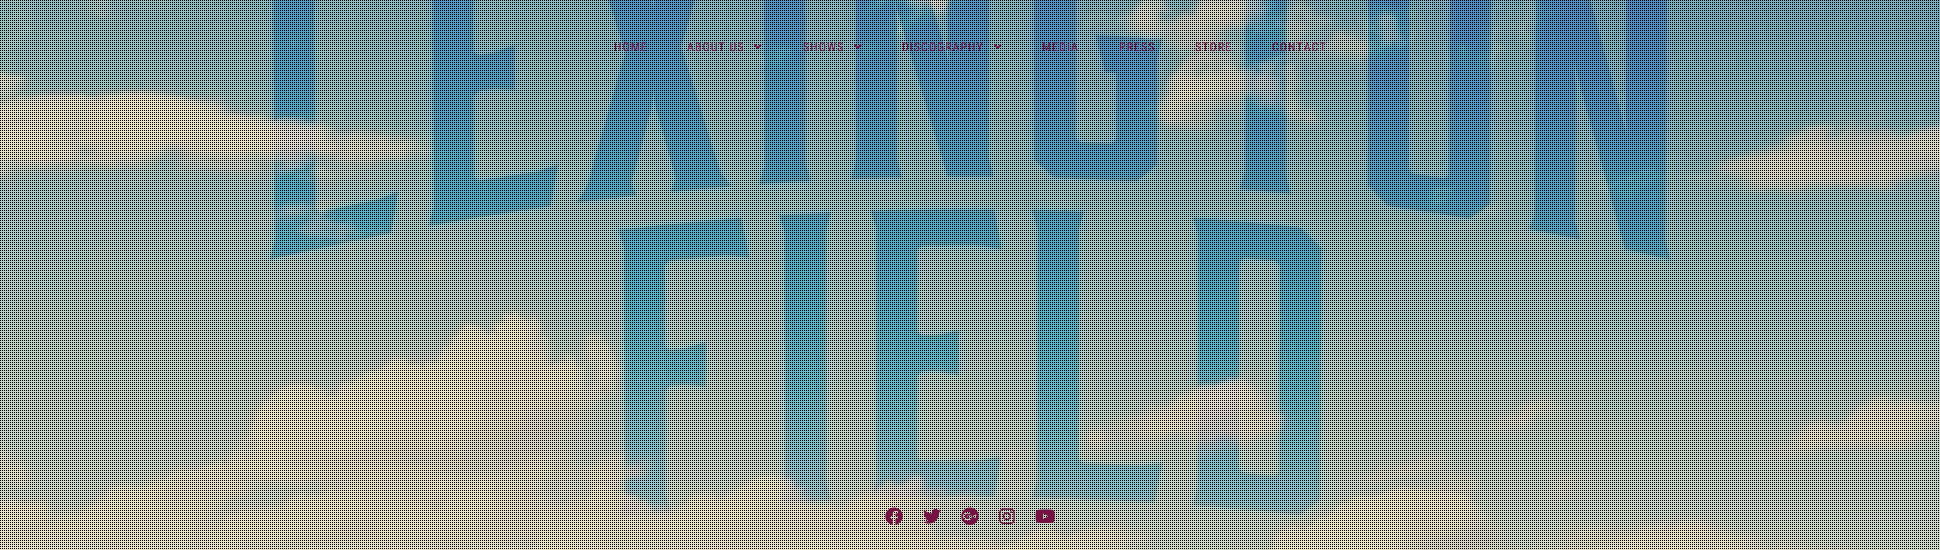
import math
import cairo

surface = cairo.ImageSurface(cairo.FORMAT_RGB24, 1940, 550)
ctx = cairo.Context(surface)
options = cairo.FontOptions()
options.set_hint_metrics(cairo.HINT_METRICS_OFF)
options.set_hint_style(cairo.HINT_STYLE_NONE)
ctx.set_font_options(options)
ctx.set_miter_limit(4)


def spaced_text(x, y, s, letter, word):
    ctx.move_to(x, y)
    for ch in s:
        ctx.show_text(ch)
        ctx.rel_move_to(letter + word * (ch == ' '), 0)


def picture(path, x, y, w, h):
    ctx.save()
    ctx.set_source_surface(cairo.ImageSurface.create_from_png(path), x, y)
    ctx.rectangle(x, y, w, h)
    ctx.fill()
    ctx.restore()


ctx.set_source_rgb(1, 1, 1)
ctx.paint()
picture("img1.png", 0, 0, 1940, 550)
picture("img2.png", 0, 0, 1939, 549)
ctx.select_font_face("Roboto Condensed")
ctx.set_font_size(12)
ctx.set_source_rgb(0.455, 0.071, 0.263)
spaced_text(614, 51, "HOME", 1, 0)
spaced_text(687, 51, "ABOUT US", 1, 0)
picture("img3.png", 754, 44, 8, 5)
spaced_text(803, 51, "SHOWS", 1, 0)
picture("img4.png", 854, 44, 8, 5)
spaced_text(902, 51, "DISCOGRAPHY", 1, 0)
picture("img5.png", 994, 44, 8, 5)
spaced_text(1042, 51, "MEDIA", 1, 0)
spaced_text(1119, 51, "PRESS", 1, 0)
spaced_text(1195, 51, "STORE", 1, 0)
spaced_text(1272, 51, "CONTACT", 1, 0)
picture("img6.png", 885, 507, 18, 18)
picture("img7.png", 923, 508, 18, 16)
picture("img8.png", 961, 507, 18, 18)
picture("img9.png", 999, 508, 16, 17)
picture("img10.png", 1035, 509, 20, 14)
surface.write_to_png("page.png")
